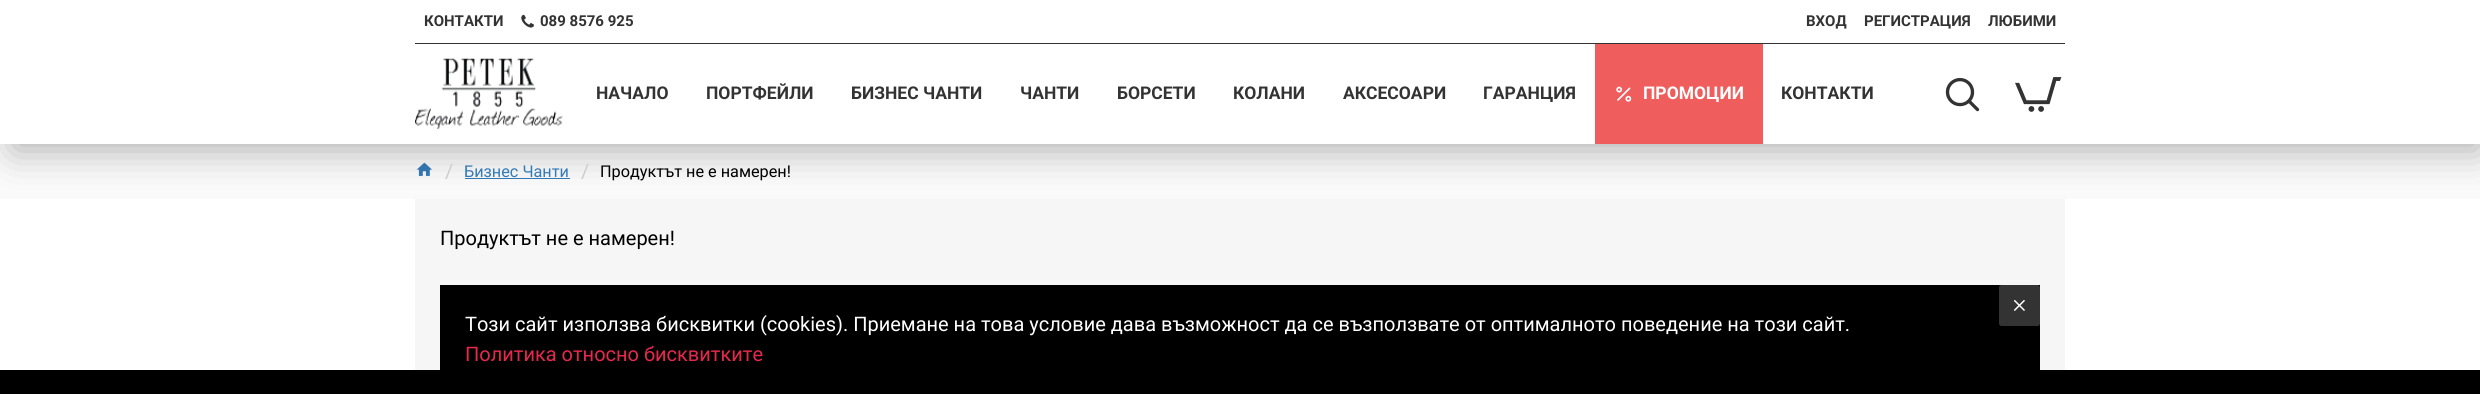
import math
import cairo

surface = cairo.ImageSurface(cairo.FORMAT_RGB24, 2480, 394)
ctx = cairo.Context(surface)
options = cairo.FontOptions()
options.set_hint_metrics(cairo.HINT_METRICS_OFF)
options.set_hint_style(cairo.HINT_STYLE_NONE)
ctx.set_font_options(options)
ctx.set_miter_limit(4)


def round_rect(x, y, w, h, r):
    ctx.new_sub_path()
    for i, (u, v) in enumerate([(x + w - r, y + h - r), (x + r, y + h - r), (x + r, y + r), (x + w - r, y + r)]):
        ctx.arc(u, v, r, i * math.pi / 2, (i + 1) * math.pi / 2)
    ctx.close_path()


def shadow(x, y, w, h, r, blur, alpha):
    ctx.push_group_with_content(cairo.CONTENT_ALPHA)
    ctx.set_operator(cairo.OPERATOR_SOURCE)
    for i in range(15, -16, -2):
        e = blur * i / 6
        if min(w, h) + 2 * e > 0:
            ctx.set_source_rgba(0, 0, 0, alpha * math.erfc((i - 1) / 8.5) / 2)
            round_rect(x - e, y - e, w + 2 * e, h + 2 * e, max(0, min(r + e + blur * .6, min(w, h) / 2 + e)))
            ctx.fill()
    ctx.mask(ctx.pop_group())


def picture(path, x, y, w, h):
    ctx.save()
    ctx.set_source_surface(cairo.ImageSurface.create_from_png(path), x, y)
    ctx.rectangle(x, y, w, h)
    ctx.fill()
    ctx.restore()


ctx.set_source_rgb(1, 1, 1)
ctx.paint()
ctx.set_source_rgb(0.98, 0.98, 0.98)
ctx.rectangle(0, 144, 2480, 55)
ctx.fill()
picture("img6.png", 416, 162, 16, 14)
ctx.set_source_rgb(0.2, 0.478, 0.718)
ctx.rectangle(465, 178, 105, 1)
ctx.fill()
ctx.set_source_rgb(0.961, 0.961, 0.961)
ctx.rectangle(415, 199, 1650, 171)
ctx.fill()
ctx.set_source_rgb(0, 0, 0)
shadow(13, 19, 2467, 131, 0, 19, 0.3)
ctx.set_source_rgb(1, 1, 1)
ctx.rectangle(0, 0, 2480, 144)
ctx.fill()
ctx.set_source_rgb(0.2, 0.2, 0.2)
ctx.rectangle(415, 43, 1650, 1)
ctx.fill()
ctx.select_font_face("Roboto", cairo.FONT_SLANT_NORMAL, cairo.FONT_WEIGHT_BOLD)
ctx.set_font_size(15)
ctx.move_to(424, 26)
ctx.show_text("КОНТАКТИ")
picture("img1.png", 521, 14, 13, 14)
ctx.move_to(540, 26)
ctx.show_text("089 8576 925")
ctx.move_to(1806, 26)
ctx.show_text("ВХОД")
ctx.move_to(1864, 26)
ctx.show_text("РЕГИСТРАЦИЯ")
ctx.move_to(1988, 26)
ctx.show_text("ЛЮБИМИ")
picture("img2.png", 415, 58, 148, 71)
ctx.set_font_size(17.5)
ctx.move_to(596, 99)
ctx.show_text("НАЧАЛО")
ctx.move_to(706, 99)
ctx.show_text("ПОРТФЕЙЛИ")
ctx.move_to(851, 99)
ctx.show_text("БИЗНЕС ЧАНТИ")
ctx.move_to(1020, 99)
ctx.show_text("ЧАНТИ")
ctx.move_to(1117, 99)
ctx.show_text("БОРСЕТИ")
ctx.move_to(1233, 99)
ctx.show_text("КОЛАНИ")
ctx.move_to(1343, 99)
ctx.show_text("АКСЕСОАРИ")
ctx.move_to(1483, 99)
ctx.show_text("ГАРАНЦИЯ")
ctx.set_source_rgb(0.937, 0.365, 0.365)
ctx.rectangle(1595, 44, 168, 100)
ctx.fill()
picture("img3.png", 1616, 86, 16, 16)
ctx.set_source_rgb(1, 1, 1)
ctx.move_to(1643, 99)
ctx.show_text("ПРОМОЦИИ")
ctx.set_source_rgb(0.2, 0.2, 0.2)
ctx.move_to(1781, 99)
ctx.show_text("КОНТАКТИ")
picture("img4.png", 1945, 77, 35, 35)
picture("img5.png", 2015, 77, 47, 35)
ctx.select_font_face("Roboto")
ctx.set_font_size(20)
ctx.set_source_rgb(0.8, 0.8, 0.8)
ctx.move_to(445, 178)
ctx.show_text("/")
ctx.set_font_size(16.25)
ctx.set_source_rgb(0.2, 0.478, 0.718)
ctx.move_to(464, 177)
ctx.show_text("Бизнес Чанти")
ctx.set_font_size(20)
ctx.set_source_rgb(0.8, 0.8, 0.8)
ctx.move_to(581, 178)
ctx.show_text("/")
ctx.set_font_size(16.25)
ctx.set_source_rgb(0, 0, 0)
ctx.move_to(600, 177)
ctx.show_text("Продуктът не е намерен!")
ctx.set_font_size(20)
ctx.move_to(440, 245)
ctx.show_text("Продуктът не е намерен!")
ctx.rectangle(0, 370, 2480, 24)
ctx.fill()
ctx.rectangle(440, 285, 1600, 85)
ctx.fill()
ctx.set_source_rgb(0.2, 0.2, 0.2)
round_rect(1999, 285, 41, 41, 2.5)
ctx.fill()
picture("img7.png", 2014, 300, 11, 11)
ctx.set_source_rgb(1, 1, 1)
ctx.move_to(465, 331)
ctx.show_text("Този сайт използва бисквитки (cookies). Приемане на това условие дава възможност да се възползвате от оптималното поведение на този сайт.")
ctx.set_source_rgb(0.906, 0.157, 0.302)
ctx.move_to(465, 361)
ctx.show_text("Политика относно бисквитките")
surface.write_to_png("page.png")
